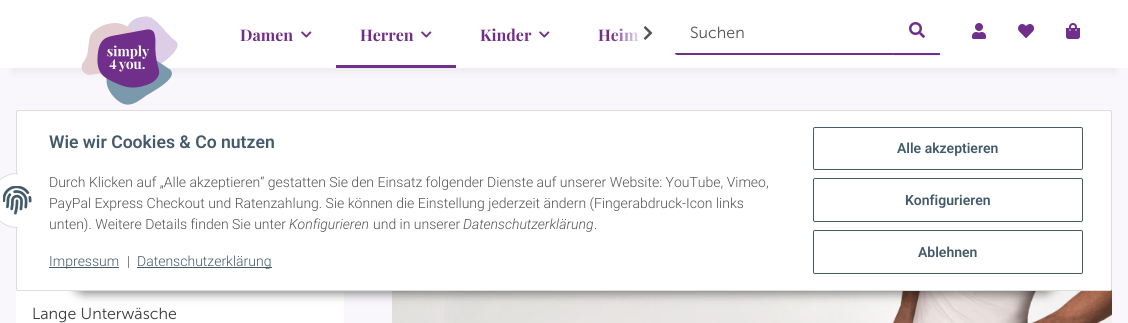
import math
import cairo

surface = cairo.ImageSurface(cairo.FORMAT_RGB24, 1128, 323)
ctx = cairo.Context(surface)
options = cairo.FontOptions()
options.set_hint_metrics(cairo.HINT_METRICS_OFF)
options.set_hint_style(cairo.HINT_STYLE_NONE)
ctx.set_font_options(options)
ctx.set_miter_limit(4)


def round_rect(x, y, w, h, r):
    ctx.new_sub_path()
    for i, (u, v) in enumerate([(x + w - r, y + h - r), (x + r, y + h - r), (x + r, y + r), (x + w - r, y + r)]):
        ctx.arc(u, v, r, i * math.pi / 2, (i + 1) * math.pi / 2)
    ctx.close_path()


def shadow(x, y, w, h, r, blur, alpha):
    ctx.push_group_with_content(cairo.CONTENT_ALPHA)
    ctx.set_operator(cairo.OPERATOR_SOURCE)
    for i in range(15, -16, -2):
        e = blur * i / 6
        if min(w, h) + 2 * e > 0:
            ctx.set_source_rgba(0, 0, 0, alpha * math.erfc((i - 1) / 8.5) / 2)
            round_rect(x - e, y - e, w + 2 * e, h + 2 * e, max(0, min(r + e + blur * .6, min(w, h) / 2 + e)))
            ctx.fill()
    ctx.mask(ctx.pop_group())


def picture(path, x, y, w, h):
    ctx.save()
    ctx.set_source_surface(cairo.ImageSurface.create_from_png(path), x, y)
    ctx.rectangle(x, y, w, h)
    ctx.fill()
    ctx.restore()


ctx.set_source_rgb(0.976, 0.965, 0.984)
ctx.paint()
ctx.set_source_rgb(0, 0, 0)
shadow(12, 28, 1104, 44, 0, 4.5, 0.06)
ctx.set_source_rgb(1, 1, 1)
ctx.rectangle(0, 0, 1128, 68)
ctx.fill()
picture("img1.png", 81, 16, 97, 89)
ctx.select_font_face("Playfair Display", cairo.FONT_SLANT_NORMAL, cairo.FONT_WEIGHT_BOLD)
ctx.set_font_size(16)
ctx.set_source_rgb(0.439, 0.184, 0.541)
ctx.move_to(598, 41)
ctx.show_text("Heim")
gradient = cairo.LinearGradient(611, 34, 659, 34)
gradient.add_color_stop_rgba(0, 1, 1, 1, 0.01)
gradient.add_color_stop_rgba(0.7, 1, 1, 1, 1)
ctx.set_source(gradient)
ctx.rectangle(611, 28, 27, 14)
ctx.fill()
picture("img2.png", 643, 26, 10, 14)
ctx.set_source_rgb(0.439, 0.184, 0.541)
ctx.move_to(240, 41)
ctx.show_text("Damen")
picture("img3.png", 301, 31, 11, 7)
ctx.move_to(360, 41)
ctx.show_text("Herren")
picture("img3.png", 421, 31, 11, 7)
ctx.rectangle(336, 65, 120, 3)
ctx.fill()
ctx.move_to(480, 41)
ctx.show_text("Kinder")
picture("img3.png", 539, 31, 11, 7)
ctx.new_path()
ctx.move_to(893, 55)
ctx.curve_to(894, 55, 895, 54, 895, 53)
ctx.line_to(675, 53)
ctx.curve_to(675, 54, 676, 55, 677, 55)
ctx.close_path()
ctx.fill()
ctx.select_font_face("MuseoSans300 Light")
ctx.set_source_rgb(0.322, 0.322, 0.322)
ctx.move_to(690, 38)
ctx.show_text("Suchen")
ctx.save()
ctx.rectangle(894, 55, 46, 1)
ctx.clip()
ctx.set_source_rgb(0, 0, 0)
shadow(894, 10, 46, 46, 0, 0.5, 0.07)
ctx.restore()
ctx.set_source_rgb(0.439, 0.184, 0.541)
ctx.rectangle(894, 53, 46, 2)
ctx.fill()
picture("img4.png", 909, 22, 16, 16)
picture("img5.png", 972, 23, 14, 16)
picture("img6.png", 1018, 24, 16, 14)
picture("img7.png", 1066, 23, 14, 16)
ctx.set_source_rgb(1, 1, 1)
ctx.rectangle(16, 289, 328, 34)
ctx.fill()
picture("img9.png", 392, 289, 720, 34)
ctx.set_source_rgb(0, 0, 0)
shadow(72, 262, 984, 32, 16, 5, 0.45)
ctx.set_source_rgb(1, 1, 1)
round_rect(16.5, 110.5, 1095, 180, 1.5)
ctx.fill_preserve()
ctx.set_source_rgb(0.867, 0.867, 0.867)
ctx.set_line_width(1)
ctx.stroke()
ctx.set_source_rgb(1, 1, 1)
ctx.arc(17.5, 200.5, 27, 0, 2 * math.pi)
ctx.fill_preserve()
ctx.set_source_rgb(0.867, 0.867, 0.867)
ctx.stroke()
ctx.set_source_rgb(1, 1, 1)
ctx.rectangle(18, 173, 27, 55)
ctx.fill()
picture("img8.png", 3, 186, 29, 29)
ctx.select_font_face("Roboto SemiBold")
ctx.set_font_size(17.6)
ctx.set_source_rgb(0.263, 0.353, 0.42)
ctx.move_to(49, 148)
ctx.show_text("Wie wir Cookies & Co nutzen")
ctx.select_font_face("Roboto Light")
ctx.set_font_size(14)
ctx.set_source_rgb(0.322, 0.322, 0.322)
ctx.move_to(49, 187)
ctx.show_text("Durch Klicken auf „Alle akzeptieren“ gestatten Sie den Einsatz folgender Dienste auf unserer Website: YouTube, Vimeo,")
ctx.move_to(49, 208)
ctx.show_text("PayPal Express Checkout und Ratenzahlung. Sie können die Einstellung jederzeit ändern (Fingerabdruck-Icon links")
ctx.move_to(49, 229)
ctx.show_text("unten). Weitere Details finden Sie unter")
ctx.select_font_face("Roboto Light", cairo.FONT_SLANT_ITALIC)
ctx.move_to(289, 229)
ctx.show_text("Konfigurieren")
ctx.select_font_face("Roboto Light")
ctx.move_to(373, 229)
ctx.show_text("und in unserer")
ctx.select_font_face("Roboto Light", cairo.FONT_SLANT_ITALIC)
ctx.move_to(463, 229)
ctx.show_text("Datenschutzerklärung")
ctx.select_font_face("Roboto Light")
ctx.move_to(594, 229)
ctx.show_text(".")
ctx.set_source_rgb(0.263, 0.353, 0.42)
ctx.rectangle(49, 267, 70, 1)
ctx.fill()
ctx.move_to(49, 266)
ctx.show_text("Impressum")
ctx.set_source_rgb(0.322, 0.322, 0.322)
ctx.move_to(127, 266)
ctx.show_text("|")
ctx.set_source_rgb(0.263, 0.353, 0.42)
ctx.rectangle(137, 267, 135, 1)
ctx.fill()
ctx.move_to(137, 266)
ctx.show_text("Datenschutzerklärung")
round_rect(813.5, 127.5, 269, 42, 1.5)
ctx.stroke()
ctx.select_font_face("Roboto SemiBold")
ctx.move_to(897, 153)
ctx.show_text("Alle akzeptieren")
round_rect(813.5, 178.5, 269, 43, 1.5)
ctx.stroke()
ctx.move_to(905, 205)
ctx.show_text("Konfigurieren")
round_rect(813.5, 230.5, 269, 43, 1.5)
ctx.stroke()
ctx.move_to(918, 257)
ctx.show_text("Ablehnen")
ctx.select_font_face("MuseoSans300 Light")
ctx.set_font_size(16)
ctx.set_source_rgb(0.235, 0.235, 0.235)
ctx.move_to(32, 319)
ctx.show_text("Lange Unterwäsche")
surface.write_to_png("page.png")
